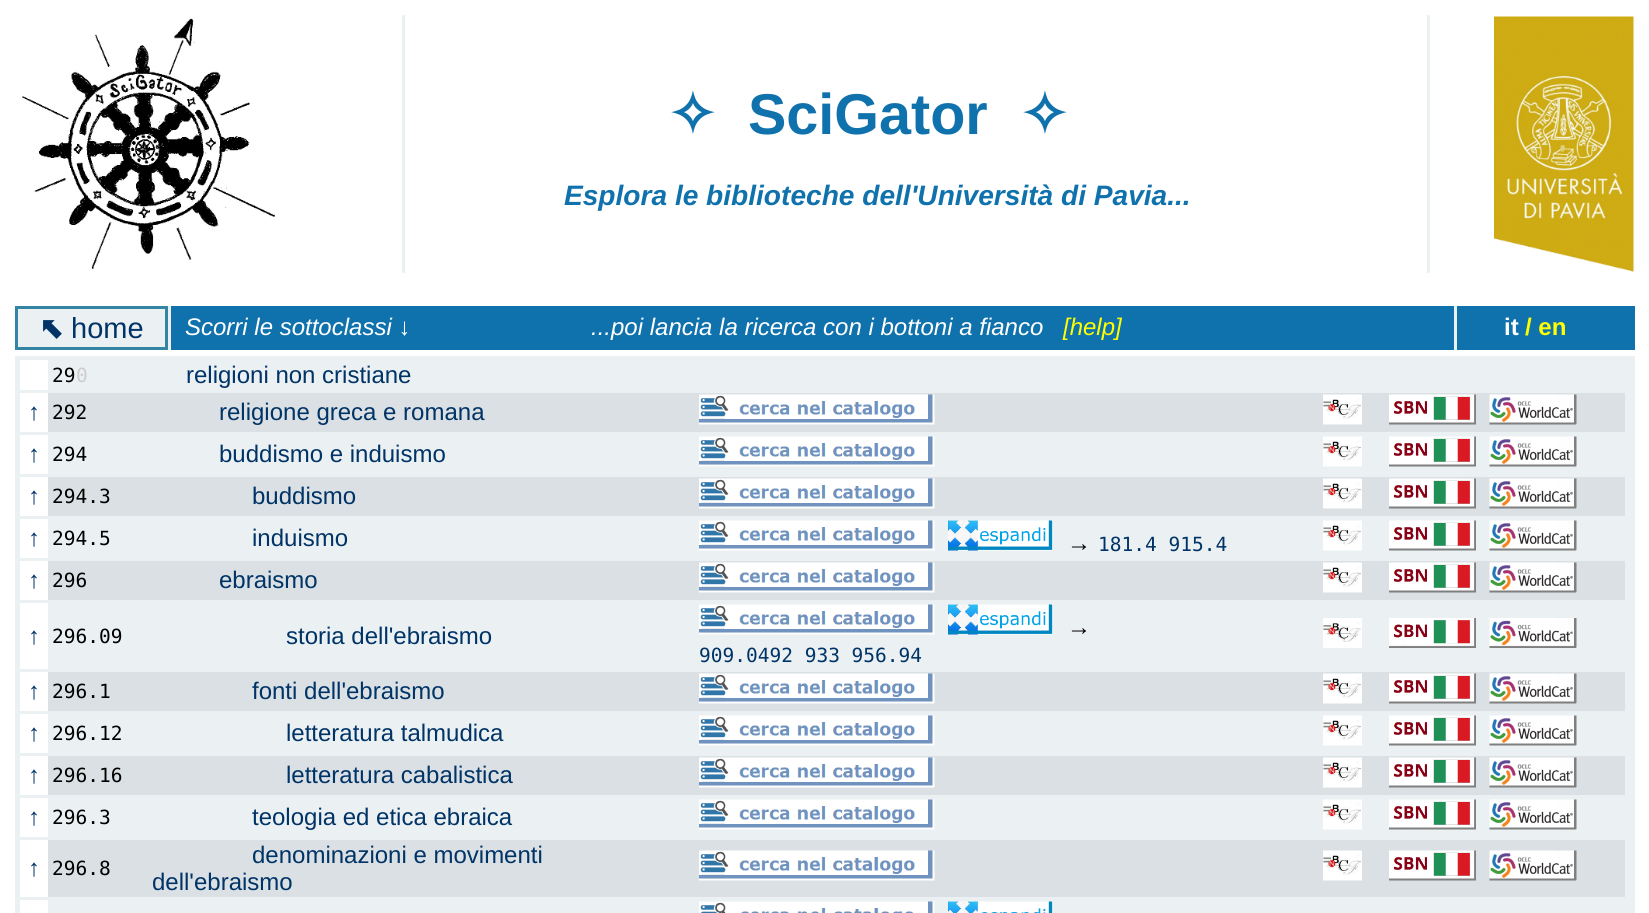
import math
import cairo

surface = cairo.ImageSurface(cairo.FORMAT_RGB24, 1649, 913)
ctx = cairo.Context(surface)
options = cairo.FontOptions()
options.set_hint_metrics(cairo.HINT_METRICS_OFF)
options.set_hint_style(cairo.HINT_STYLE_NONE)
ctx.set_font_options(options)
ctx.set_miter_limit(4)


def picture(path, x, y, w, h):
    ctx.save()
    ctx.set_source_surface(cairo.ImageSurface.create_from_png(path), x, y)
    ctx.rectangle(x, y, w, h)
    ctx.fill()
    ctx.restore()


ctx.set_source_rgb(1, 1, 1)
ctx.paint()
ctx.set_source_rgb(0.918, 0.941, 0.953)
ctx.rectangle(402, 15, 1028, 258)
ctx.fill()
picture("img1.png", 22, 18, 253, 252)
ctx.set_source_rgb(1, 1, 1)
ctx.rectangle(405, 15, 1022, 258)
ctx.fill()
ctx.select_font_face("DejaVu Sans", cairo.FONT_SLANT_NORMAL, cairo.FONT_WEIGHT_BOLD)
ctx.set_font_size(57.5)
ctx.set_source_rgb(0.063, 0.447, 0.678)
ctx.move_to(668, 134)
ctx.show_text("✧")
ctx.select_font_face("Liberation Sans", cairo.FONT_SLANT_NORMAL, cairo.FONT_WEIGHT_BOLD)
ctx.move_to(748, 134)
ctx.show_text("SciGator")
ctx.select_font_face("DejaVu Sans", cairo.FONT_SLANT_NORMAL, cairo.FONT_WEIGHT_BOLD)
ctx.move_to(1020, 134)
ctx.show_text("✧")
ctx.select_font_face("Liberation Sans", cairo.FONT_SLANT_ITALIC, cairo.FONT_WEIGHT_BOLD)
ctx.set_font_size(28.1)
ctx.move_to(564, 205)
ctx.show_text("Esplora le biblioteche dell'Università di Pavia...")
picture("img2.png", 1494, 16, 140, 256)
ctx.set_source_rgb(0.918, 0.941, 0.953)
ctx.rectangle(18, 306, 1439, 44)
ctx.fill()
ctx.rectangle(16.5, 307.5, 150, 41)
ctx.set_source_rgb(0.204, 0.522, 0.639)
ctx.set_line_width(3)
ctx.stroke()
ctx.select_font_face("DejaVu Sans", cairo.FONT_SLANT_NORMAL, cairo.FONT_WEIGHT_BOLD)
ctx.set_font_size(29)
ctx.set_source_rgb(0, 0.2, 0.4)
ctx.move_to(39, 338)
ctx.show_text("⬉")
ctx.select_font_face("Liberation Sans")
ctx.move_to(71, 338)
ctx.show_text("home")
ctx.set_source_rgb(0.063, 0.447, 0.678)
ctx.rectangle(171, 306, 1283, 44)
ctx.fill()
ctx.select_font_face("Liberation Sans", cairo.FONT_SLANT_ITALIC)
ctx.set_font_size(24)
ctx.set_source_rgb(1, 1, 1)
ctx.move_to(185, 335)
ctx.show_text("Scorri le sottoclassi ↓")
ctx.move_to(591, 335)
ctx.show_text("...poi lancia la ricerca con i bottoni a fianco")
ctx.set_source_rgb(1, 1, 0)
ctx.move_to(1063, 335)
ctx.show_text("[help]")
ctx.set_source_rgb(0.063, 0.447, 0.678)
ctx.rectangle(1457, 306, 178, 44)
ctx.fill()
ctx.select_font_face("Liberation Sans", cairo.FONT_SLANT_NORMAL, cairo.FONT_WEIGHT_BOLD)
ctx.set_source_rgb(1, 1, 1)
ctx.move_to(1504, 335)
ctx.show_text("it")
ctx.set_source_rgb(1, 1, 0)
ctx.move_to(1525, 335)
ctx.show_text("/ en")
ctx.set_source_rgb(0.918, 0.941, 0.953)
ctx.rectangle(15, 356, 1620, 557)
ctx.fill()
ctx.set_source_rgb(1, 1, 1)
ctx.rectangle(20, 360, 28, 30)
ctx.fill()
ctx.select_font_face("DejaVu Sans Mono")
ctx.set_font_size(19.5)
ctx.set_source_rgb(0, 0, 0)
ctx.move_to(52, 382)
ctx.show_text("29")
ctx.set_source_rgb(0.8, 0.8, 0.8)
ctx.move_to(76, 382)
ctx.show_text("0")
ctx.select_font_face("Liberation Sans")
ctx.set_font_size(24)
ctx.set_source_rgb(0, 0.2, 0.4)
ctx.move_to(186, 383)
ctx.show_text("religioni non cristiane")
ctx.set_source_rgb(0.855, 0.878, 0.89)
ctx.rectangle(48, 393, 1577, 39)
ctx.fill()
ctx.set_source_rgb(1, 1, 1)
ctx.rectangle(20, 393, 28, 39)
ctx.fill()
ctx.set_source_rgb(0, 0.2, 0.4)
ctx.move_to(28, 420)
ctx.show_text("↑")
ctx.select_font_face("DejaVu Sans Mono")
ctx.set_font_size(19.5)
ctx.set_source_rgb(0, 0, 0)
ctx.move_to(52, 419)
ctx.show_text("292")
ctx.select_font_face("Liberation Sans")
ctx.set_font_size(24)
ctx.set_source_rgb(0, 0.2, 0.4)
ctx.move_to(219, 420)
ctx.show_text("religione greca e romana")
picture("img3.png", 699, 394, 236, 31)
picture("img4.png", 1323, 394, 39, 31)
picture("img5.png", 1389, 394, 87, 31)
picture("img6.png", 1489, 394, 88, 31)
ctx.set_source_rgb(1, 1, 1)
ctx.rectangle(20, 435, 28, 39)
ctx.fill()
ctx.set_source_rgb(0, 0.2, 0.4)
ctx.move_to(28, 462)
ctx.show_text("↑")
ctx.select_font_face("DejaVu Sans Mono")
ctx.set_font_size(19.5)
ctx.set_source_rgb(0, 0, 0)
ctx.move_to(52, 461)
ctx.show_text("294")
ctx.select_font_face("Liberation Sans")
ctx.set_font_size(24)
ctx.set_source_rgb(0, 0.2, 0.4)
ctx.move_to(219, 462)
ctx.show_text("buddismo e induismo")
picture("img7.png", 699, 436, 236, 31)
picture("img8.png", 1323, 436, 39, 31)
picture("img9.png", 1389, 436, 87, 31)
picture("img10.png", 1489, 436, 88, 31)
ctx.set_source_rgb(0.855, 0.878, 0.89)
ctx.rectangle(48, 477, 1577, 39)
ctx.fill()
ctx.set_source_rgb(1, 1, 1)
ctx.rectangle(20, 477, 28, 39)
ctx.fill()
ctx.set_source_rgb(0, 0.2, 0.4)
ctx.move_to(28, 504)
ctx.show_text("↑")
ctx.select_font_face("DejaVu Sans Mono")
ctx.set_font_size(19.5)
ctx.set_source_rgb(0, 0, 0)
ctx.move_to(52, 503)
ctx.show_text("294.3")
ctx.select_font_face("Liberation Sans")
ctx.set_font_size(24)
ctx.set_source_rgb(0, 0.2, 0.4)
ctx.move_to(252, 504)
ctx.show_text("buddismo")
picture("img3.png", 699, 478, 236, 31)
picture("img4.png", 1323, 478, 39, 31)
picture("img11.png", 1389, 478, 87, 31)
picture("img12.png", 1489, 478, 88, 31)
ctx.set_source_rgb(1, 1, 1)
ctx.rectangle(20, 519, 28, 39)
ctx.fill()
ctx.set_source_rgb(0, 0.2, 0.4)
ctx.move_to(28, 546)
ctx.show_text("↑")
ctx.select_font_face("DejaVu Sans Mono")
ctx.set_font_size(19.5)
ctx.set_source_rgb(0, 0, 0)
ctx.move_to(52, 545)
ctx.show_text("294.5")
ctx.select_font_face("Liberation Sans")
ctx.set_font_size(24)
ctx.set_source_rgb(0, 0.2, 0.4)
ctx.move_to(252, 546)
ctx.show_text("induismo")
picture("img7.png", 699, 520, 236, 31)
picture("img13.png", 948, 520, 105, 31)
ctx.set_source_rgb(0, 0, 0)
ctx.move_to(1067, 551)
ctx.show_text("→")
ctx.select_font_face("DejaVu Sans Mono")
ctx.set_font_size(19.5)
ctx.set_source_rgb(0, 0.2, 0.4)
ctx.move_to(1098, 551)
ctx.show_text("181.4 915.4")
picture("img8.png", 1323, 520, 39, 31)
picture("img9.png", 1389, 520, 87, 31)
picture("img10.png", 1489, 520, 88, 31)
ctx.set_source_rgb(0.855, 0.878, 0.89)
ctx.rectangle(48, 561, 1577, 39)
ctx.fill()
ctx.set_source_rgb(1, 1, 1)
ctx.rectangle(20, 561, 28, 39)
ctx.fill()
ctx.select_font_face("Liberation Sans")
ctx.set_font_size(24)
ctx.set_source_rgb(0, 0.2, 0.4)
ctx.move_to(28, 588)
ctx.show_text("↑")
ctx.select_font_face("DejaVu Sans Mono")
ctx.set_font_size(19.5)
ctx.set_source_rgb(0, 0, 0)
ctx.move_to(52, 587)
ctx.show_text("296")
ctx.select_font_face("Liberation Sans")
ctx.set_font_size(24)
ctx.set_source_rgb(0, 0.2, 0.4)
ctx.move_to(219, 588)
ctx.show_text("ebraismo")
picture("img3.png", 699, 562, 236, 31)
picture("img4.png", 1323, 562, 39, 31)
picture("img11.png", 1389, 562, 87, 31)
picture("img12.png", 1489, 562, 88, 31)
ctx.set_source_rgb(1, 1, 1)
ctx.rectangle(20, 603, 28, 66)
ctx.fill()
ctx.set_source_rgb(0, 0.2, 0.4)
ctx.move_to(28, 644)
ctx.show_text("↑")
ctx.select_font_face("DejaVu Sans Mono")
ctx.set_font_size(19.5)
ctx.set_source_rgb(0, 0, 0)
ctx.move_to(52, 643)
ctx.show_text("296.09")
ctx.select_font_face("Liberation Sans")
ctx.set_font_size(24)
ctx.set_source_rgb(0, 0.2, 0.4)
ctx.move_to(286, 644)
ctx.show_text("storia dell'ebraismo")
picture("img7.png", 699, 604, 236, 31)
picture("img13.png", 948, 604, 105, 31)
ctx.set_source_rgb(0, 0, 0)
ctx.move_to(1067, 635)
ctx.show_text("→")
ctx.select_font_face("DejaVu Sans Mono")
ctx.set_font_size(19.5)
ctx.set_source_rgb(0, 0.2, 0.4)
ctx.move_to(699, 662)
ctx.show_text("909.0492 933 956.94")
picture("img14.png", 1323, 618, 39, 30)
picture("img15.png", 1389, 618, 87, 30)
picture("img16.png", 1489, 618, 88, 30)
ctx.set_source_rgb(0.855, 0.878, 0.89)
ctx.rectangle(48, 672, 1577, 39)
ctx.fill()
ctx.set_source_rgb(1, 1, 1)
ctx.rectangle(20, 672, 28, 39)
ctx.fill()
ctx.select_font_face("Liberation Sans")
ctx.set_font_size(24)
ctx.set_source_rgb(0, 0.2, 0.4)
ctx.move_to(28, 699)
ctx.show_text("↑")
ctx.select_font_face("DejaVu Sans Mono")
ctx.set_font_size(19.5)
ctx.set_source_rgb(0, 0, 0)
ctx.move_to(52, 698)
ctx.show_text("296.1")
ctx.select_font_face("Liberation Sans")
ctx.set_font_size(24)
ctx.set_source_rgb(0, 0.2, 0.4)
ctx.move_to(252, 699)
ctx.show_text("fonti dell'ebraismo")
picture("img3.png", 699, 673, 236, 31)
picture("img4.png", 1323, 673, 39, 31)
picture("img11.png", 1389, 673, 87, 31)
picture("img12.png", 1489, 673, 88, 31)
ctx.set_source_rgb(1, 1, 1)
ctx.rectangle(20, 714, 28, 39)
ctx.fill()
ctx.set_source_rgb(0, 0.2, 0.4)
ctx.move_to(28, 741)
ctx.show_text("↑")
ctx.select_font_face("DejaVu Sans Mono")
ctx.set_font_size(19.5)
ctx.set_source_rgb(0, 0, 0)
ctx.move_to(52, 740)
ctx.show_text("296.12")
ctx.select_font_face("Liberation Sans")
ctx.set_font_size(24)
ctx.set_source_rgb(0, 0.2, 0.4)
ctx.move_to(286, 741)
ctx.show_text("letteratura talmudica")
picture("img7.png", 699, 715, 236, 31)
picture("img8.png", 1323, 715, 39, 31)
picture("img9.png", 1389, 715, 87, 31)
picture("img10.png", 1489, 715, 88, 31)
ctx.set_source_rgb(0.855, 0.878, 0.89)
ctx.rectangle(48, 756, 1577, 39)
ctx.fill()
ctx.set_source_rgb(1, 1, 1)
ctx.rectangle(20, 756, 28, 39)
ctx.fill()
ctx.set_source_rgb(0, 0.2, 0.4)
ctx.move_to(28, 783)
ctx.show_text("↑")
ctx.select_font_face("DejaVu Sans Mono")
ctx.set_font_size(19.5)
ctx.set_source_rgb(0, 0, 0)
ctx.move_to(52, 782)
ctx.show_text("296.16")
ctx.select_font_face("Liberation Sans")
ctx.set_font_size(24)
ctx.set_source_rgb(0, 0.2, 0.4)
ctx.move_to(286, 783)
ctx.show_text("letteratura cabalistica")
picture("img3.png", 699, 757, 236, 31)
picture("img4.png", 1323, 757, 39, 31)
picture("img11.png", 1389, 757, 87, 31)
picture("img12.png", 1489, 757, 88, 31)
ctx.set_source_rgb(1, 1, 1)
ctx.rectangle(20, 798, 28, 39)
ctx.fill()
ctx.set_source_rgb(0, 0.2, 0.4)
ctx.move_to(28, 825)
ctx.show_text("↑")
ctx.select_font_face("DejaVu Sans Mono")
ctx.set_font_size(19.5)
ctx.set_source_rgb(0, 0, 0)
ctx.move_to(52, 824)
ctx.show_text("296.3")
ctx.select_font_face("Liberation Sans")
ctx.set_font_size(24)
ctx.set_source_rgb(0, 0.2, 0.4)
ctx.move_to(252, 825)
ctx.show_text("teologia ed etica ebraica")
picture("img7.png", 699, 799, 236, 31)
picture("img8.png", 1323, 799, 39, 31)
picture("img9.png", 1389, 799, 87, 31)
picture("img10.png", 1489, 799, 88, 31)
ctx.set_source_rgb(0.855, 0.878, 0.89)
ctx.rectangle(48, 840, 1577, 57)
ctx.fill()
ctx.set_source_rgb(1, 1, 1)
ctx.rectangle(20, 840, 28, 57)
ctx.fill()
ctx.set_source_rgb(0, 0.2, 0.4)
ctx.move_to(28, 876)
ctx.show_text("↑")
ctx.select_font_face("DejaVu Sans Mono")
ctx.set_font_size(19.5)
ctx.set_source_rgb(0, 0, 0)
ctx.move_to(52, 875)
ctx.show_text("296.8")
ctx.select_font_face("Liberation Sans")
ctx.set_font_size(24)
ctx.set_source_rgb(0, 0.2, 0.4)
ctx.move_to(252, 863)
ctx.show_text("denominazioni e movimenti")
ctx.move_to(152, 890)
ctx.show_text("dell'ebraismo")
picture("img3.png", 699, 850, 236, 31)
picture("img4.png", 1323, 850, 39, 31)
picture("img11.png", 1389, 850, 87, 31)
picture("img12.png", 1489, 850, 88, 31)
ctx.set_source_rgb(1, 1, 1)
ctx.rectangle(20, 900, 28, 13)
ctx.fill()
picture("img17.png", 699, 901, 236, 12)
picture("img18.png", 948, 901, 105, 12)
surface.write_to_png("page.png")
